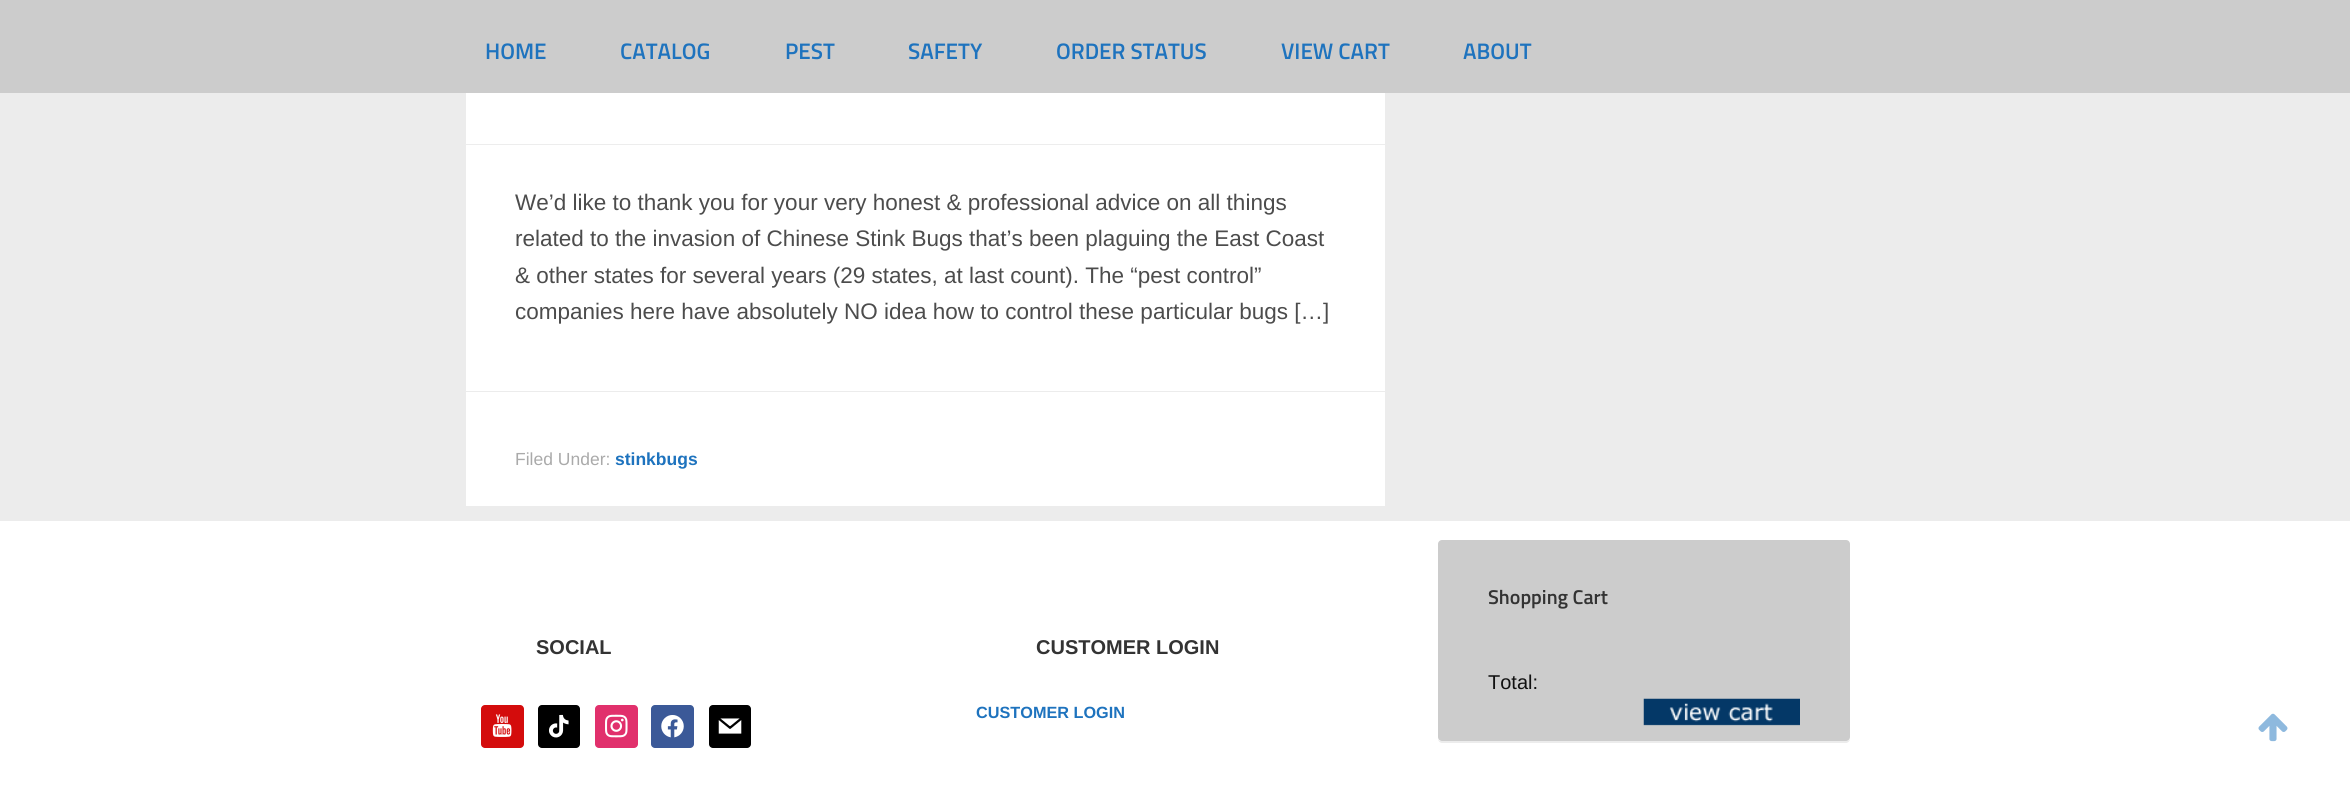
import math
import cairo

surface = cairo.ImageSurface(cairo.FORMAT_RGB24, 2350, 791)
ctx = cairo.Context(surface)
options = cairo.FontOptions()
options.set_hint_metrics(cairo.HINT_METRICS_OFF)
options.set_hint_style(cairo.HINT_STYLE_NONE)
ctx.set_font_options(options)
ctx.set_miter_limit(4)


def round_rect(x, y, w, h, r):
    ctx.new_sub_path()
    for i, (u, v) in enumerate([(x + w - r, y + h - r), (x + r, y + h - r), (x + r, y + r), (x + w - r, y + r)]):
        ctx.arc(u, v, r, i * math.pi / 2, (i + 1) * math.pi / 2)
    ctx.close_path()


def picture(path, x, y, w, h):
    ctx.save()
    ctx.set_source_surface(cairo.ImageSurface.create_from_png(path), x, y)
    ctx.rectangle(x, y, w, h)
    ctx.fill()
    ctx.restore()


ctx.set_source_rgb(1, 1, 1)
ctx.paint()
ctx.set_source_rgb(0.925, 0.925, 0.925)
ctx.rectangle(0, 93, 2350, 428)
ctx.fill()
ctx.set_source_rgb(1, 1, 1)
ctx.rectangle(466, 93, 919, 413)
ctx.fill()
ctx.rectangle(464.5, -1.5, 922, 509)
ctx.set_source_rgb(0.925, 0.925, 0.925)
ctx.set_line_width(3)
ctx.stroke()
ctx.set_source_rgb(0.8, 0.8, 0.8)
ctx.rectangle(0, 0, 2350, 93)
ctx.fill()
ctx.select_font_face("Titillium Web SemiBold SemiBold")
ctx.set_font_size(22.5)
ctx.set_source_rgb(0.118, 0.451, 0.745)
ctx.move_to(485, 59)
ctx.show_text("HOME")
ctx.move_to(620, 59)
ctx.show_text("CATALOG")
ctx.move_to(785, 59)
ctx.show_text("PEST")
ctx.move_to(908, 59)
ctx.show_text("SAFETY")
ctx.move_to(1056, 59)
ctx.show_text("ORDER STATUS")
ctx.move_to(1281, 59)
ctx.show_text("VIEW CART")
ctx.move_to(1463, 59)
ctx.show_text("ABOUT")
ctx.set_source_rgb(0.929, 0.929, 0.929)
ctx.rectangle(465, 144, 920, 1)
ctx.fill()
ctx.select_font_face("Liberation Sans")
ctx.set_source_rgb(0.298, 0.298, 0.298)
ctx.move_to(515, 210)
ctx.show_text("We’d like to thank you for your very honest & professional advice on all things")
ctx.move_to(515, 246)
ctx.show_text("related to the invasion of Chinese Stink Bugs that’s been plaguing the East Coast")
ctx.move_to(515, 283)
ctx.show_text("& other states for several years (29 states, at last count). The “pest control”")
ctx.move_to(515, 319)
ctx.show_text("companies here have absolutely NO idea how to control these particular bugs […]")
ctx.set_source_rgb(0.925, 0.925, 0.925)
ctx.rectangle(465, 391, 920, 1)
ctx.fill()
ctx.set_font_size(17.5)
ctx.set_source_rgb(0.667, 0.667, 0.667)
ctx.move_to(515, 465)
ctx.show_text("Filed Under:")
ctx.select_font_face("Liberation Sans", cairo.FONT_SLANT_NORMAL, cairo.FONT_WEIGHT_BOLD)
ctx.set_source_rgb(0.118, 0.451, 0.745)
ctx.move_to(615, 465)
ctx.show_text("stinkbugs")
ctx.set_source_rgb(0.925, 0.925, 0.925)
ctx.new_path()
ctx.move_to(1438, 739)
ctx.curve_to(1438, 741, 1440, 743, 1442, 743)
ctx.line_to(1846, 743)
ctx.curve_to(1848, 743, 1850, 741, 1850, 739)
ctx.line_to(1850, 738)
ctx.curve_to(1850, 740, 1848, 741, 1846, 741)
ctx.line_to(1441, 741)
ctx.curve_to(1440, 741, 1439, 741, 1438, 739)
ctx.close_path()
ctx.fill()
ctx.set_source_rgb(0.8, 0.8, 0.8)
round_rect(1438, 540, 412, 201, 4)
ctx.fill()
ctx.select_font_face("Titillium Web SemiBold SemiBold")
ctx.set_font_size(20)
ctx.set_source_rgb(0.2, 0.2, 0.2)
ctx.move_to(1488, 604)
ctx.show_text("Shopping Cart")
ctx.select_font_face("Liberation Sans")
ctx.set_source_rgb(0.067, 0.067, 0.067)
ctx.move_to(1488, 689)
ctx.show_text("Total:")
picture("img1.png", 1643, 698, 157, 28)
ctx.select_font_face("Liberation Sans", cairo.FONT_SLANT_NORMAL, cairo.FONT_WEIGHT_BOLD)
ctx.set_source_rgb(0.2, 0.2, 0.2)
ctx.move_to(536, 654)
ctx.show_text("SOCIAL")
ctx.set_source_rgb(0.831, 0.047, 0.047)
round_rect(481, 705, 43, 43, 4)
ctx.fill()
picture("img2.png", 492, 714, 20, 23)
ctx.set_source_rgb(0, 0, 0)
round_rect(538, 705, 42, 43, 4)
ctx.fill()
picture("img3.png", 549, 714, 20, 24)
ctx.set_source_rgb(0.882, 0.188, 0.424)
round_rect(595, 705, 43, 43, 4)
ctx.fill()
picture("img4.png", 605, 714, 23, 24)
ctx.set_source_rgb(0.231, 0.349, 0.596)
round_rect(651, 705, 43, 43, 4)
ctx.fill()
picture("img5.png", 661, 715, 23, 23)
ctx.set_source_rgb(0, 0, 0)
round_rect(709, 705, 42, 43, 4)
ctx.fill()
picture("img6.png", 718, 718, 24, 16)
ctx.set_source_rgb(0.2, 0.2, 0.2)
ctx.move_to(1036, 654)
ctx.show_text("CUSTOMER LOGIN")
ctx.set_font_size(16.25)
ctx.set_source_rgb(0.118, 0.451, 0.745)
ctx.move_to(976, 718)
ctx.show_text("CUSTOMER LOGIN")
picture("img7.png", 2258, 713, 30, 29)
surface.write_to_png("page.png")
